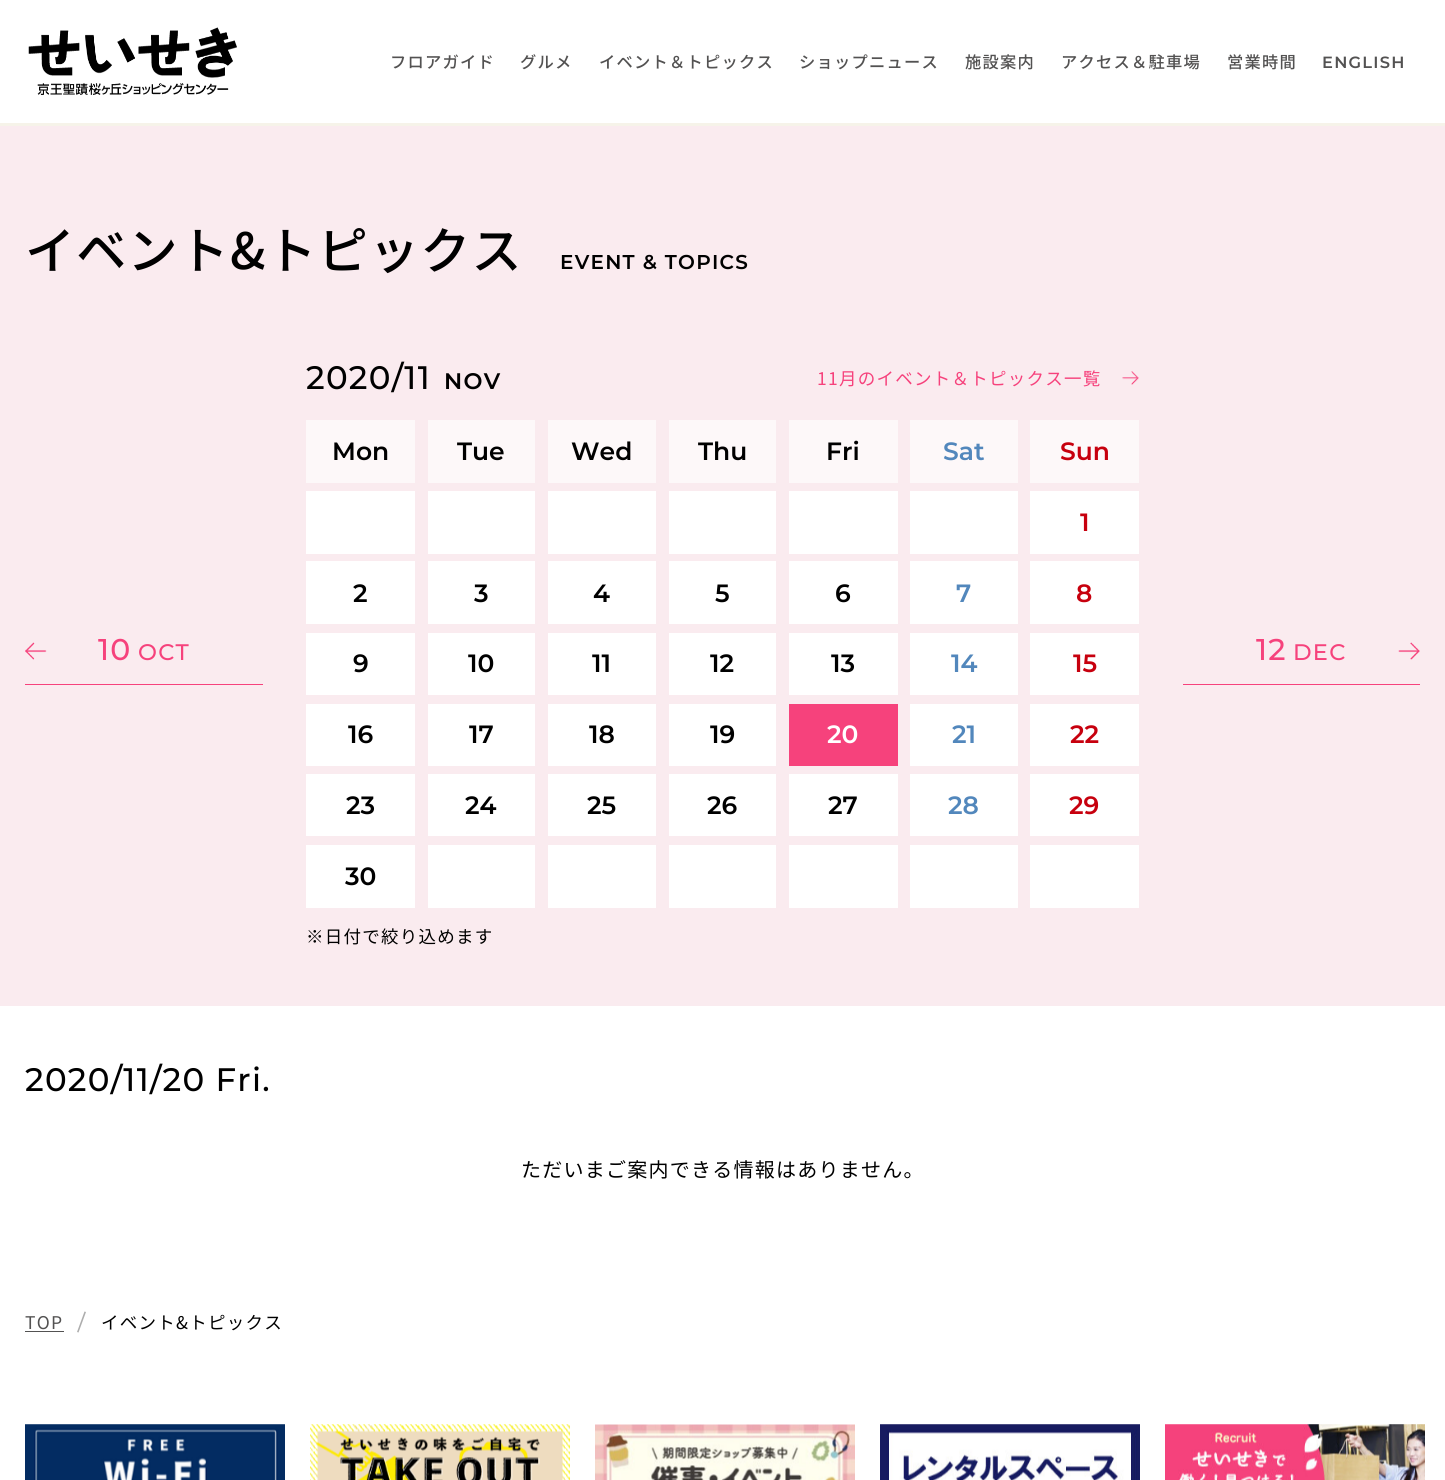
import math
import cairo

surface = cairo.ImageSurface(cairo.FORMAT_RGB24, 1445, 1480)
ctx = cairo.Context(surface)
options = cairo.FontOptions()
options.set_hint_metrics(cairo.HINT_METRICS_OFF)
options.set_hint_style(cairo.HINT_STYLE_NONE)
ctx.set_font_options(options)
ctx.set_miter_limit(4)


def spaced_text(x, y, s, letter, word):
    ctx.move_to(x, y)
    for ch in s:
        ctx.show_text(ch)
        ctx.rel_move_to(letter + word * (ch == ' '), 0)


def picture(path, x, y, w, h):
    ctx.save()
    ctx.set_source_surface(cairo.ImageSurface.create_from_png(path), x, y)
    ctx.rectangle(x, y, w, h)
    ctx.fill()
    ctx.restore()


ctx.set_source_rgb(1, 1, 1)
ctx.paint()
ctx.set_source_rgb(0.961, 0.953, 0.914)
ctx.rectangle(0, 123, 1445, 3)
ctx.fill()
picture("img1.png", 28, 27, 209, 68)
ctx.select_font_face("Noto Sans JP Medium")
ctx.set_font_size(16.25)
ctx.set_source_rgb(0.325, 0.322, 0.322)
spaced_text(390, 68, "フロアガイド", 1.25, 0)
spaced_text(520, 68, "グルメ", 1.25, 0)
spaced_text(599, 68, "イベント＆トピックス", 1.25, 0)
spaced_text(799, 68, "ショップニュース", 1.25, 0)
spaced_text(965, 68, "施設案内", 1.25, 0)
spaced_text(1061, 68, "アクセス＆駐車場", 1.25, 0)
spaced_text(1227, 68, "営業時間", 1.25, 0)
ctx.select_font_face("Montserrat SemiBold")
spaced_text(1322, 68, "ENGLISH", 1.25, 0)
ctx.set_source_rgb(0.98, 0.918, 0.937)
ctx.rectangle(0, 126, 1445, 880)
ctx.fill()
ctx.select_font_face("Noto Sans JP Medium")
ctx.set_font_size(50)
ctx.set_source_rgb(0, 0, 0)
spaced_text(25, 269, "イベント&トピックス", 1.25, 0)
ctx.select_font_face("Montserrat SemiBold")
ctx.set_font_size(20)
spaced_text(560, 269, "EVENT & TOPICS", 1.25, 0)
picture("img2.png", 25, 642, 22, 18)
ctx.set_source_rgb(0.961, 0.259, 0.486)
ctx.rectangle(25, 684, 238, 1)
ctx.fill()
ctx.select_font_face("Montserrat Medium")
ctx.set_font_size(30)
spaced_text(98, 660, "10", 1.25, 0)
ctx.set_font_size(22.5)
spaced_text(138, 660, "OCT", 1.25, 0)
ctx.set_font_size(32.5)
ctx.set_source_rgb(0, 0, 0)
spaced_text(306, 389, "2020/11", 1.25, 0)
ctx.select_font_face("Montserrat SemiBold")
ctx.set_font_size(22.5)
spaced_text(444, 389, "NOV", 1.25, 0)
picture("img3.png", 1122, 371, 17, 14)
ctx.select_font_face("Noto Sans JP")
ctx.set_font_size(17.5)
ctx.set_source_rgb(0.961, 0.259, 0.486)
spaced_text(817, 385, "11月のイベント＆トピックス一覧", 1.25, 0)
ctx.set_source_rgb(0.992, 0.969, 0.976)
ctx.rectangle(306, 420, 109, 63)
ctx.fill()
ctx.select_font_face("Montserrat SemiBold")
ctx.set_font_size(25)
ctx.set_source_rgb(0, 0, 0)
ctx.move_to(332, 460)
ctx.show_text("Mon")
ctx.set_source_rgb(0.992, 0.969, 0.976)
ctx.rectangle(428, 420, 107, 63)
ctx.fill()
ctx.set_source_rgb(0, 0, 0)
ctx.move_to(457, 460)
ctx.show_text("Tue")
ctx.set_source_rgb(0.992, 0.969, 0.976)
ctx.rectangle(548, 420, 108, 63)
ctx.fill()
ctx.set_source_rgb(0, 0, 0)
ctx.move_to(571, 460)
ctx.show_text("Wed")
ctx.set_source_rgb(0.992, 0.969, 0.976)
ctx.rectangle(669, 420, 107, 63)
ctx.fill()
ctx.set_source_rgb(0, 0, 0)
ctx.move_to(698, 460)
ctx.show_text("Thu")
ctx.set_source_rgb(0.992, 0.969, 0.976)
ctx.rectangle(789, 420, 109, 63)
ctx.fill()
ctx.set_source_rgb(0, 0, 0)
ctx.move_to(826, 460)
ctx.show_text("Fri")
ctx.set_source_rgb(0.992, 0.969, 0.976)
ctx.rectangle(910, 420, 108, 63)
ctx.fill()
ctx.set_source_rgb(0.322, 0.529, 0.737)
ctx.move_to(943, 460)
ctx.show_text("Sat")
ctx.set_source_rgb(0.992, 0.969, 0.976)
ctx.rectangle(1030, 420, 109, 63)
ctx.fill()
ctx.set_source_rgb(0.78, 0, 0.055)
ctx.move_to(1060, 460)
ctx.show_text("Sun")
ctx.set_source_rgb(1, 1, 1)
ctx.rectangle(306, 491, 109, 63)
ctx.fill()
ctx.rectangle(428, 491, 107, 63)
ctx.fill()
ctx.rectangle(548, 491, 108, 63)
ctx.fill()
ctx.rectangle(669, 491, 107, 63)
ctx.fill()
ctx.rectangle(789, 491, 109, 63)
ctx.fill()
ctx.rectangle(910, 491, 108, 63)
ctx.fill()
ctx.rectangle(1030, 491, 109, 63)
ctx.fill()
ctx.set_source_rgb(0.78, 0, 0.055)
ctx.move_to(1080, 531)
ctx.show_text("1")
ctx.set_source_rgb(1, 1, 1)
ctx.rectangle(306, 561, 109, 63)
ctx.fill()
ctx.set_source_rgb(0, 0, 0)
ctx.move_to(353, 602)
ctx.show_text("2")
ctx.set_source_rgb(1, 1, 1)
ctx.rectangle(428, 561, 107, 63)
ctx.fill()
ctx.set_source_rgb(0, 0, 0)
ctx.move_to(474, 602)
ctx.show_text("3")
ctx.set_source_rgb(1, 1, 1)
ctx.rectangle(548, 561, 108, 63)
ctx.fill()
ctx.set_source_rgb(0, 0, 0)
ctx.move_to(593, 602)
ctx.show_text("4")
ctx.set_source_rgb(1, 1, 1)
ctx.rectangle(669, 561, 107, 63)
ctx.fill()
ctx.set_source_rgb(0, 0, 0)
ctx.move_to(715, 602)
ctx.show_text("5")
ctx.set_source_rgb(1, 1, 1)
ctx.rectangle(789, 561, 109, 63)
ctx.fill()
ctx.set_source_rgb(0, 0, 0)
ctx.move_to(835, 602)
ctx.show_text("6")
ctx.set_source_rgb(1, 1, 1)
ctx.rectangle(910, 561, 108, 63)
ctx.fill()
ctx.set_source_rgb(0.322, 0.529, 0.737)
ctx.move_to(956, 602)
ctx.show_text("7")
ctx.set_source_rgb(1, 1, 1)
ctx.rectangle(1030, 561, 109, 63)
ctx.fill()
ctx.set_source_rgb(0.78, 0, 0.055)
ctx.move_to(1076, 602)
ctx.show_text("8")
ctx.set_source_rgb(1, 1, 1)
ctx.rectangle(306, 633, 109, 62)
ctx.fill()
ctx.set_source_rgb(0, 0, 0)
ctx.move_to(353, 672)
ctx.show_text("9")
ctx.set_source_rgb(1, 1, 1)
ctx.rectangle(428, 633, 107, 62)
ctx.fill()
ctx.set_source_rgb(0, 0, 0)
ctx.move_to(468, 672)
ctx.show_text("10")
ctx.set_source_rgb(1, 1, 1)
ctx.rectangle(548, 633, 108, 62)
ctx.fill()
ctx.set_source_rgb(0, 0, 0)
ctx.move_to(592, 672)
ctx.show_text("11")
ctx.set_source_rgb(1, 1, 1)
ctx.rectangle(669, 633, 107, 62)
ctx.fill()
ctx.set_source_rgb(0, 0, 0)
ctx.move_to(710, 672)
ctx.show_text("12")
ctx.set_source_rgb(1, 1, 1)
ctx.rectangle(789, 633, 109, 62)
ctx.fill()
ctx.set_source_rgb(0, 0, 0)
ctx.move_to(831, 672)
ctx.show_text("13")
ctx.set_source_rgb(1, 1, 1)
ctx.rectangle(910, 633, 108, 62)
ctx.fill()
ctx.set_source_rgb(0.322, 0.529, 0.737)
ctx.move_to(951, 672)
ctx.show_text("14")
ctx.set_source_rgb(1, 1, 1)
ctx.rectangle(1030, 633, 109, 62)
ctx.fill()
ctx.set_source_rgb(0.78, 0, 0.055)
ctx.move_to(1073, 672)
ctx.show_text("15")
ctx.set_source_rgb(1, 1, 1)
ctx.rectangle(306, 704, 109, 62)
ctx.fill()
ctx.set_source_rgb(0, 0, 0)
ctx.move_to(348, 743)
ctx.show_text("16")
ctx.set_source_rgb(1, 1, 1)
ctx.rectangle(428, 704, 107, 62)
ctx.fill()
ctx.set_source_rgb(0, 0, 0)
ctx.move_to(469, 743)
ctx.show_text("17")
ctx.set_source_rgb(1, 1, 1)
ctx.rectangle(548, 704, 108, 62)
ctx.fill()
ctx.set_source_rgb(0, 0, 0)
ctx.move_to(589, 743)
ctx.show_text("18")
ctx.set_source_rgb(1, 1, 1)
ctx.rectangle(669, 704, 107, 62)
ctx.fill()
ctx.set_source_rgb(0, 0, 0)
ctx.move_to(710, 743)
ctx.show_text("19")
ctx.set_source_rgb(0.961, 0.259, 0.486)
ctx.rectangle(789, 704, 109, 62)
ctx.fill()
ctx.set_source_rgb(1, 1, 1)
ctx.move_to(827, 743)
ctx.show_text("20")
ctx.rectangle(910, 704, 108, 62)
ctx.fill()
ctx.set_source_rgb(0.322, 0.529, 0.737)
ctx.move_to(952, 743)
ctx.show_text("21")
ctx.set_source_rgb(1, 1, 1)
ctx.rectangle(1030, 704, 109, 62)
ctx.fill()
ctx.set_source_rgb(0.78, 0, 0.055)
ctx.move_to(1070, 743)
ctx.show_text("22")
ctx.set_source_rgb(1, 1, 1)
ctx.rectangle(306, 774, 109, 62)
ctx.fill()
ctx.set_source_rgb(0, 0, 0)
ctx.move_to(346, 814)
ctx.show_text("23")
ctx.set_source_rgb(1, 1, 1)
ctx.rectangle(428, 774, 107, 62)
ctx.fill()
ctx.set_source_rgb(0, 0, 0)
ctx.move_to(465, 814)
ctx.show_text("24")
ctx.set_source_rgb(1, 1, 1)
ctx.rectangle(548, 774, 108, 62)
ctx.fill()
ctx.set_source_rgb(0, 0, 0)
ctx.move_to(587, 814)
ctx.show_text("25")
ctx.set_source_rgb(1, 1, 1)
ctx.rectangle(669, 774, 107, 62)
ctx.fill()
ctx.set_source_rgb(0, 0, 0)
ctx.move_to(707, 814)
ctx.show_text("26")
ctx.set_source_rgb(1, 1, 1)
ctx.rectangle(789, 774, 109, 62)
ctx.fill()
ctx.set_source_rgb(0, 0, 0)
ctx.move_to(828, 814)
ctx.show_text("27")
ctx.set_source_rgb(1, 1, 1)
ctx.rectangle(910, 774, 108, 62)
ctx.fill()
ctx.set_source_rgb(0.322, 0.529, 0.737)
ctx.move_to(948, 814)
ctx.show_text("28")
ctx.set_source_rgb(1, 1, 1)
ctx.rectangle(1030, 774, 109, 62)
ctx.fill()
ctx.set_source_rgb(0.78, 0, 0.055)
ctx.move_to(1069, 814)
ctx.show_text("29")
ctx.set_source_rgb(1, 1, 1)
ctx.rectangle(306, 845, 109, 63)
ctx.fill()
ctx.set_source_rgb(0, 0, 0)
ctx.move_to(345, 885)
ctx.show_text("30")
ctx.set_source_rgb(1, 1, 1)
ctx.rectangle(428, 845, 107, 63)
ctx.fill()
ctx.rectangle(548, 845, 108, 63)
ctx.fill()
ctx.rectangle(669, 845, 107, 63)
ctx.fill()
ctx.rectangle(789, 845, 109, 63)
ctx.fill()
ctx.rectangle(910, 845, 108, 63)
ctx.fill()
ctx.rectangle(1030, 845, 109, 63)
ctx.fill()
ctx.select_font_face("Noto Sans JP")
ctx.set_font_size(17.5)
ctx.set_source_rgb(0, 0, 0)
spaced_text(306, 943, "※日付で絞り込めます", 1.25, 0)
picture("img4.png", 1398, 642, 22, 18)
ctx.set_source_rgb(0.961, 0.259, 0.486)
ctx.rectangle(1183, 684, 237, 1)
ctx.fill()
ctx.select_font_face("Montserrat Medium")
ctx.set_font_size(30)
spaced_text(1256, 660, "12", 1.25, 0)
ctx.set_font_size(22.5)
spaced_text(1293, 660, "DEC", 1.25, 0)
ctx.set_font_size(32.5)
ctx.set_source_rgb(0, 0, 0)
spaced_text(25, 1091, "2020/11/20 Fri.", 1.25, 0)
ctx.select_font_face("Noto Sans JP")
ctx.set_font_size(20)
spaced_text(521, 1177, "ただいまご案内できる情報はありません。", 1.25, 0)
ctx.set_font_size(17.5)
ctx.set_source_rgb(0.325, 0.322, 0.322)
spaced_text(25, 1329, "TOP", 1.25, 0)
ctx.rectangle(25, 1331, 39, 1)
ctx.fill()
ctx.set_source_rgb(0.678, 0.678, 0.678)
ctx.new_path()
ctx.move_to(84.5, 1311.5)
ctx.line_to(86, 1312)
ctx.line_to(78.5, 1332.5)
ctx.line_to(77, 1332)
ctx.close_path()
ctx.fill()
ctx.set_source_rgb(0, 0, 0)
spaced_text(101, 1329, "イベント&トピックス", 1.25, 0)
picture("img5.png", 25, 1424, 260, 56)
picture("img6.png", 310, 1424, 260, 56)
picture("img7.png", 595, 1424, 260, 56)
picture("img8.png", 880, 1424, 260, 56)
picture("img9.png", 1165, 1424, 260, 56)
surface.write_to_png("page.png")
